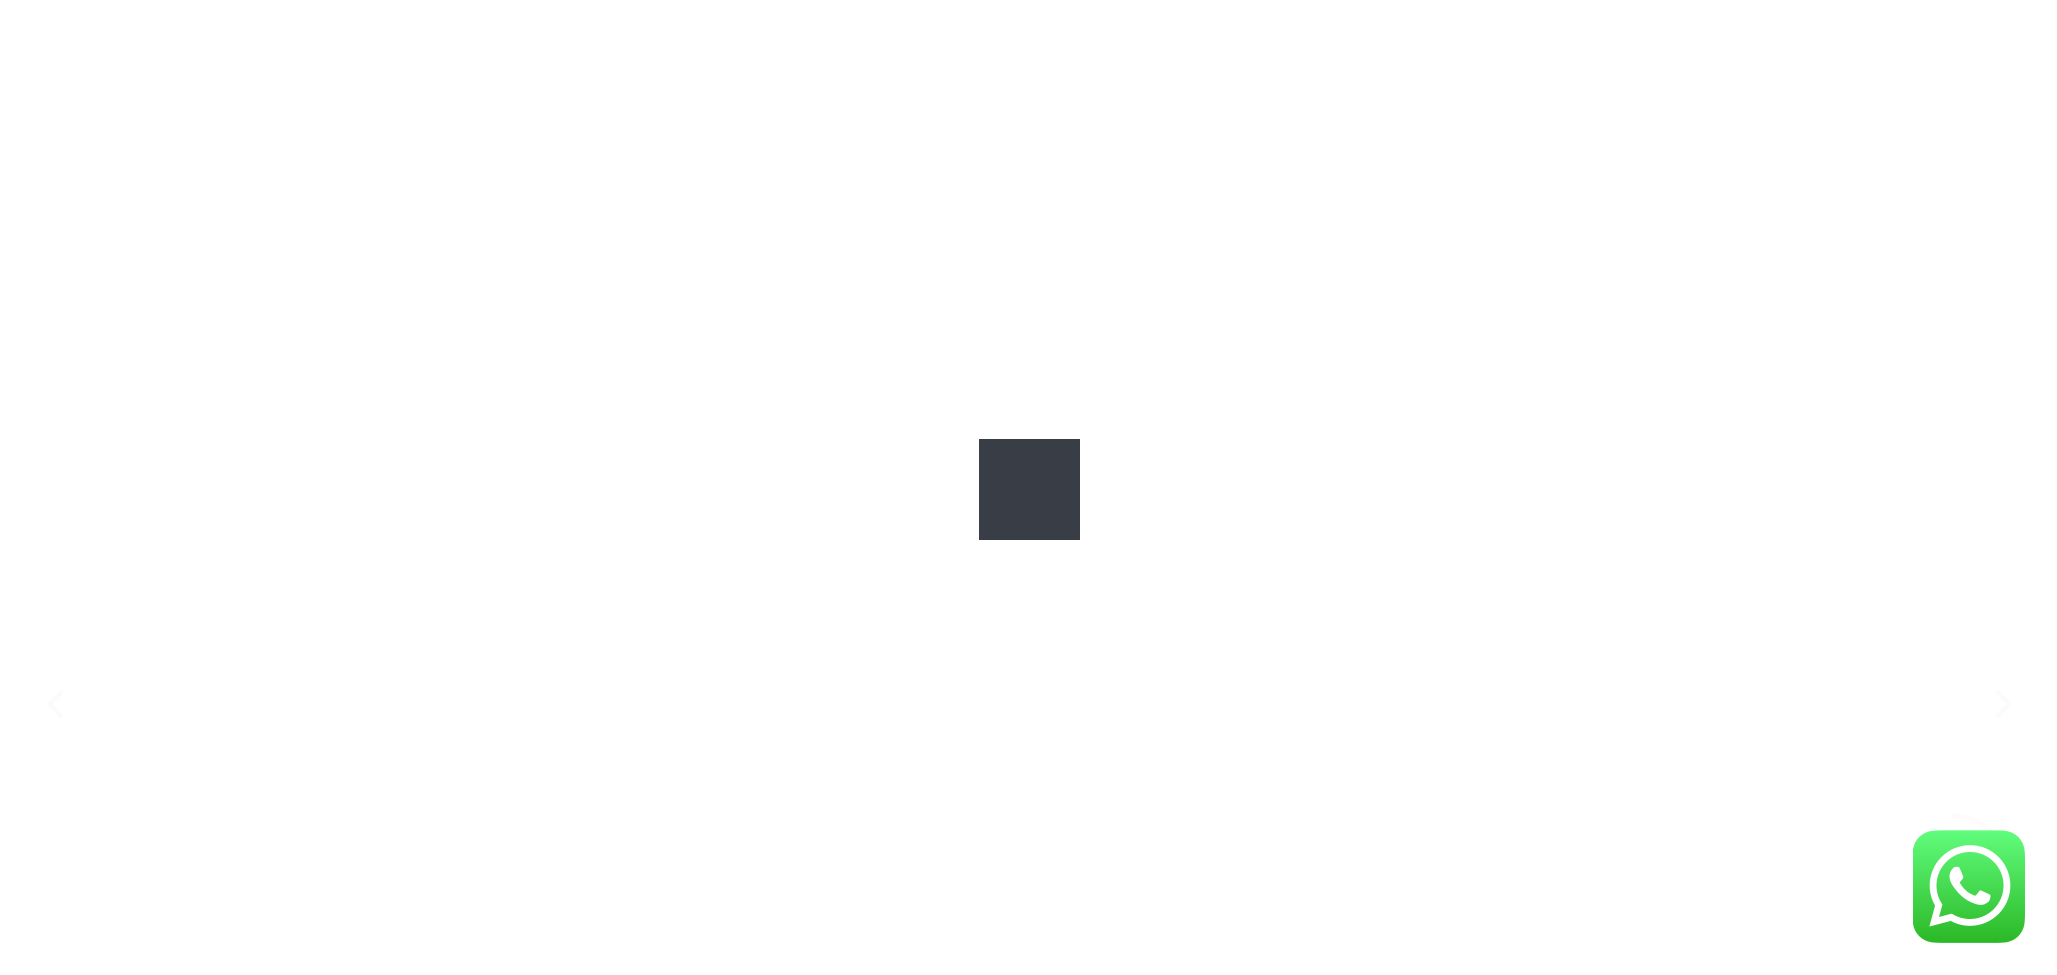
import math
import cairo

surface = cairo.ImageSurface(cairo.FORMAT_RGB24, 2057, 975)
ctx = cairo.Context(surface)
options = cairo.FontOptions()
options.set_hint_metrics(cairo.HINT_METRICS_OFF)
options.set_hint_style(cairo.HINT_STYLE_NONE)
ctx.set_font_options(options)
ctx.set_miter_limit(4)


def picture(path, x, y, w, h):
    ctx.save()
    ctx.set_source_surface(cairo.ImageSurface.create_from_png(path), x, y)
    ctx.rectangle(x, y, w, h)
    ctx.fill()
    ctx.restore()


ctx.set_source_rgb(1, 1, 1)
ctx.paint()
ctx.set_source_rgb(0.224, 0.243, 0.275)
ctx.rectangle(979, 439, 101, 101)
ctx.fill()
picture("img1.png", 47, 690, 16, 28)
picture("img2.png", 1995, 690, 17, 28)
ctx.new_path()
ctx.move_to(1953, 816)
ctx.curve_to(1983, 816, 2007.5, 840.5, 2007.5, 871)
ctx.curve_to(2007.5, 901, 1983, 925.5, 1953, 925.5)
ctx.curve_to(1938, 925.5, 1924.5, 919.5, 1915, 910)
ctx.set_source_rgb(1, 0.984, 0.969)
ctx.set_line_width(4.9)
ctx.stroke()
picture("img3.png", 1913, 830, 112, 113)
surface.write_to_png("page.png")
